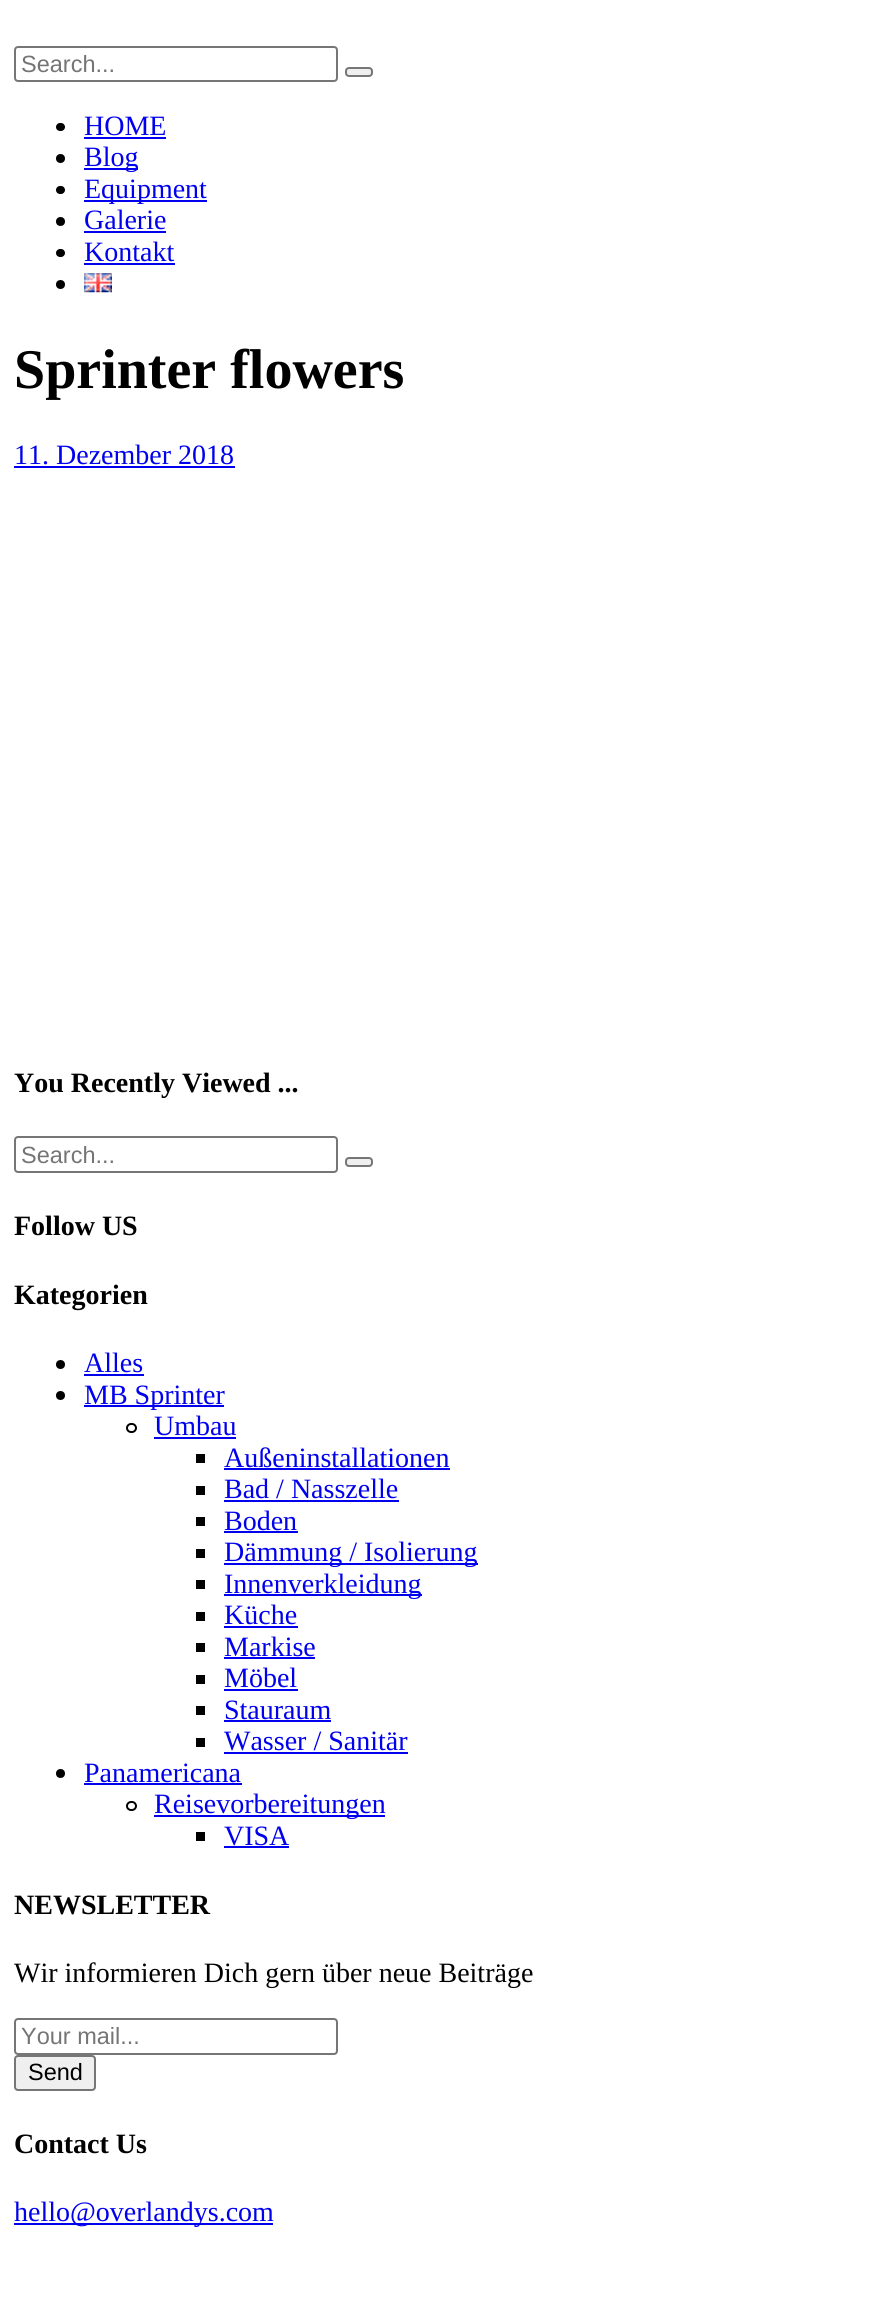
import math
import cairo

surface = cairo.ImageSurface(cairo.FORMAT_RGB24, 896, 2311)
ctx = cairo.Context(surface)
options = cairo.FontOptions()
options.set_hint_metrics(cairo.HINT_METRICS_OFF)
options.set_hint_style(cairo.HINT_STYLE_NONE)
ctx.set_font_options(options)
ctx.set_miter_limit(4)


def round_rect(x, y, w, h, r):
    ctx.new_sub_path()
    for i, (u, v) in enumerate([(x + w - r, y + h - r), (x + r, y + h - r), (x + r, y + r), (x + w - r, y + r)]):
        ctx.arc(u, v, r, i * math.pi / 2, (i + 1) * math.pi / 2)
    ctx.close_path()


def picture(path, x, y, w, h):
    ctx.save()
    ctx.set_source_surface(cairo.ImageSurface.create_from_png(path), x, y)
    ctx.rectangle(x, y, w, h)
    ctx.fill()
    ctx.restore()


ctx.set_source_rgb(1, 1, 1)
ctx.paint()
round_rect(15, 47, 322, 34, 3)
ctx.set_source_rgb(0.463, 0.463, 0.463)
ctx.stroke()
ctx.select_font_face("Liberation Sans")
ctx.set_font_size(23.5)
ctx.set_source_rgb(0.459, 0.459, 0.459)
ctx.move_to(21, 72)
ctx.show_text("Search...")
ctx.set_source_rgb(0.937, 0.937, 0.937)
round_rect(346, 68, 26, 8, 3)
ctx.fill_preserve()
ctx.set_source_rgb(0.463, 0.463, 0.463)
ctx.stroke()
ctx.set_source_rgb(0, 0, 0)
round_rect(56, 123, 9, 8, 4)
ctx.fill()
ctx.select_font_face("Liberation Serif")
ctx.set_font_size(28)
ctx.set_source_rgb(0, 0, 0.933)
ctx.move_to(84, 135)
ctx.show_text("HOME")
ctx.rectangle(84, 137, 82, 2)
ctx.fill()
ctx.set_source_rgb(0, 0, 0)
ctx.arc(60.5, 158.5, 4.5, 0, 2 * math.pi)
ctx.fill()
ctx.set_source_rgb(0, 0, 0.933)
ctx.rectangle(84, 168, 54, 2)
ctx.fill()
ctx.move_to(84, 166)
ctx.show_text("Blog")
ctx.set_source_rgb(0, 0, 0)
round_rect(56, 186, 9, 8, 4)
ctx.fill()
ctx.set_source_rgb(0, 0, 0.933)
ctx.rectangle(84, 200, 123, 2)
ctx.fill()
ctx.move_to(84, 198)
ctx.show_text("Equipment")
ctx.set_source_rgb(0, 0, 0)
ctx.new_path()
ctx.arc(60.5, 221.5, 4.5, 0, 2 * math.pi)
ctx.fill()
ctx.set_source_rgb(0, 0, 0.933)
ctx.move_to(84, 229)
ctx.show_text("Galerie")
ctx.rectangle(84, 231, 82, 2)
ctx.fill()
ctx.set_source_rgb(0, 0, 0)
round_rect(56, 249, 9, 8, 4)
ctx.fill()
ctx.set_source_rgb(0, 0, 0.933)
ctx.move_to(84, 261)
ctx.show_text("Kontakt")
ctx.rectangle(84, 263, 91, 2)
ctx.fill()
ctx.set_source_rgb(0, 0, 0)
ctx.arc(60.5, 284.5, 4.5, 0, 2 * math.pi)
ctx.fill()
picture("img1.png", 84, 273, 28, 20)
ctx.select_font_face("Liberation Serif", cairo.FONT_SLANT_NORMAL, cairo.FONT_WEIGHT_BOLD)
ctx.set_font_size(56)
ctx.move_to(14, 388)
ctx.show_text("Sprinter flowers")
ctx.select_font_face("Liberation Serif")
ctx.set_font_size(28)
ctx.set_source_rgb(0, 0, 0.933)
ctx.move_to(14, 464)
ctx.show_text("11. Dezember 2018")
ctx.rectangle(14, 466, 221, 2)
ctx.fill()
ctx.select_font_face("Liberation Serif", cairo.FONT_SLANT_NORMAL, cairo.FONT_WEIGHT_BOLD)
ctx.set_source_rgb(0, 0, 0)
ctx.move_to(14, 1092)
ctx.show_text("You Recently Viewed ...")
round_rect(15, 1137, 322, 35, 3)
ctx.set_source_rgb(0.463, 0.463, 0.463)
ctx.stroke()
ctx.select_font_face("Liberation Sans")
ctx.set_font_size(23.5)
ctx.set_source_rgb(0.459, 0.459, 0.459)
ctx.move_to(21, 1163)
ctx.show_text("Search...")
ctx.set_source_rgb(0.937, 0.937, 0.937)
round_rect(346, 1158, 26, 8, 3)
ctx.fill_preserve()
ctx.set_source_rgb(0.463, 0.463, 0.463)
ctx.stroke()
ctx.select_font_face("Liberation Serif", cairo.FONT_SLANT_NORMAL, cairo.FONT_WEIGHT_BOLD)
ctx.set_font_size(28)
ctx.set_source_rgb(0, 0, 0)
ctx.move_to(14, 1235)
ctx.show_text("Follow US")
ctx.move_to(14, 1304)
ctx.show_text("Kategorien")
ctx.new_path()
ctx.arc(60.5, 1364.5, 4.5, 0, 2 * math.pi)
ctx.fill()
ctx.select_font_face("Liberation Serif")
ctx.set_source_rgb(0, 0, 0.933)
ctx.move_to(84, 1372)
ctx.show_text("Alles")
ctx.rectangle(84, 1374, 60, 2)
ctx.fill()
ctx.set_source_rgb(0, 0, 0)
ctx.arc(60.5, 1395.5, 4.5, 0, 2 * math.pi)
ctx.fill()
ctx.set_source_rgb(0, 0, 0.933)
ctx.rectangle(84, 1405, 140, 2)
ctx.fill()
ctx.move_to(84, 1404)
ctx.show_text("MB Sprinter")
round_rect(127, 1424, 9, 8, 4)
ctx.set_source_rgb(0, 0, 0)
ctx.stroke()
ctx.set_source_rgb(0, 0, 0.933)
ctx.move_to(154, 1435)
ctx.show_text("Umbau")
ctx.rectangle(154, 1437, 82, 2)
ctx.fill()
ctx.set_source_rgb(0, 0, 0)
ctx.rectangle(196, 1454, 9, 9)
ctx.fill()
ctx.set_source_rgb(0, 0, 0.933)
ctx.move_to(224, 1467)
ctx.show_text("Außeninstallationen")
ctx.rectangle(224, 1468, 226, 2)
ctx.fill()
ctx.set_source_rgb(0, 0, 0)
ctx.rectangle(196, 1486, 9, 9)
ctx.fill()
ctx.set_source_rgb(0, 0, 0.933)
ctx.move_to(224, 1498)
ctx.show_text("Bad / Nasszelle")
ctx.rectangle(224, 1500, 175, 2)
ctx.fill()
ctx.set_source_rgb(0, 0, 0)
ctx.rectangle(196, 1517, 9, 9)
ctx.fill()
ctx.set_source_rgb(0, 0, 0.933)
ctx.move_to(224, 1530)
ctx.show_text("Boden")
ctx.rectangle(224, 1531, 74, 2)
ctx.fill()
ctx.set_source_rgb(0, 0, 0)
ctx.rectangle(196, 1549, 9, 9)
ctx.fill()
ctx.set_source_rgb(0, 0, 0.933)
ctx.rectangle(224, 1563, 254, 2)
ctx.fill()
ctx.move_to(224, 1561)
ctx.show_text("Dämmung / Isolierung")
ctx.set_source_rgb(0, 0, 0)
ctx.rectangle(196, 1580, 9, 9)
ctx.fill()
ctx.set_source_rgb(0, 0, 0.933)
ctx.rectangle(224, 1594, 198, 2)
ctx.fill()
ctx.move_to(224, 1593)
ctx.show_text("Innenverkleidung")
ctx.set_source_rgb(0, 0, 0)
ctx.rectangle(196, 1612, 9, 9)
ctx.fill()
ctx.set_source_rgb(0, 0, 0.933)
ctx.move_to(224, 1624)
ctx.show_text("Küche")
ctx.rectangle(224, 1626, 74, 2)
ctx.fill()
ctx.set_source_rgb(0, 0, 0)
ctx.rectangle(196, 1643, 9, 9)
ctx.fill()
ctx.set_source_rgb(0, 0, 0.933)
ctx.move_to(224, 1656)
ctx.show_text("Markise")
ctx.rectangle(224, 1657, 91, 2)
ctx.fill()
ctx.set_source_rgb(0, 0, 0)
ctx.rectangle(196, 1675, 9, 9)
ctx.fill()
ctx.set_source_rgb(0, 0, 0.933)
ctx.move_to(224, 1687)
ctx.show_text("Möbel")
ctx.rectangle(224, 1689, 74, 2)
ctx.fill()
ctx.set_source_rgb(0, 0, 0)
ctx.rectangle(196, 1706, 9, 9)
ctx.fill()
ctx.set_source_rgb(0, 0, 0.933)
ctx.move_to(224, 1719)
ctx.show_text("Stauraum")
ctx.rectangle(224, 1720, 107, 2)
ctx.fill()
ctx.set_source_rgb(0, 0, 0)
ctx.rectangle(196, 1738, 9, 9)
ctx.fill()
ctx.set_source_rgb(0, 0, 0.933)
ctx.move_to(224, 1750)
ctx.show_text("Wasser / Sanitär")
ctx.rectangle(224, 1752, 184, 2)
ctx.fill()
ctx.set_source_rgb(0, 0, 0)
ctx.arc(60.5, 1773.5, 4.5, 0, 2 * math.pi)
ctx.fill()
ctx.set_source_rgb(0, 0, 0.933)
ctx.move_to(84, 1782)
ctx.show_text("Panamericana")
ctx.rectangle(84, 1783, 158, 2)
ctx.fill()
round_rect(127, 1802, 9, 8, 4)
ctx.set_source_rgb(0, 0, 0)
ctx.stroke()
ctx.set_source_rgb(0, 0, 0.933)
ctx.rectangle(154, 1815, 231, 2)
ctx.fill()
ctx.move_to(154, 1813)
ctx.show_text("Reisevorbereitungen")
ctx.set_source_rgb(0, 0, 0)
ctx.rectangle(196, 1832, 9, 9)
ctx.fill()
ctx.set_source_rgb(0, 0, 0.933)
ctx.move_to(224, 1845)
ctx.show_text("VISA")
ctx.rectangle(224, 1846, 65, 2)
ctx.fill()
ctx.select_font_face("Liberation Serif", cairo.FONT_SLANT_NORMAL, cairo.FONT_WEIGHT_BOLD)
ctx.set_source_rgb(0, 0, 0)
ctx.move_to(14, 1914)
ctx.show_text("NEWSLETTER")
ctx.select_font_face("Liberation Serif")
ctx.move_to(14, 1982)
ctx.show_text("Wir informieren Dich gern über neue Beiträge")
round_rect(15, 2019, 322, 35, 3)
ctx.set_source_rgb(0.463, 0.463, 0.463)
ctx.stroke()
ctx.select_font_face("Liberation Sans")
ctx.set_font_size(23.5)
ctx.set_source_rgb(0.459, 0.459, 0.459)
ctx.move_to(21, 2044)
ctx.show_text("Your mail...")
ctx.set_source_rgb(0.937, 0.937, 0.937)
round_rect(15, 2056, 80, 34, 3)
ctx.fill_preserve()
ctx.set_source_rgb(0.463, 0.463, 0.463)
ctx.stroke()
ctx.set_source_rgb(0, 0, 0)
ctx.move_to(28, 2080)
ctx.show_text("Send")
ctx.select_font_face("Liberation Serif", cairo.FONT_SLANT_NORMAL, cairo.FONT_WEIGHT_BOLD)
ctx.set_font_size(28)
ctx.move_to(14, 2153)
ctx.show_text("Contact Us")
ctx.set_source_rgb(0, 0, 0.933)
ctx.rectangle(14, 2223, 259, 2)
ctx.fill()
ctx.select_font_face("Liberation Serif")
ctx.move_to(14, 2221)
ctx.show_text("hello@overlandys.com")
surface.write_to_png("page.png")
